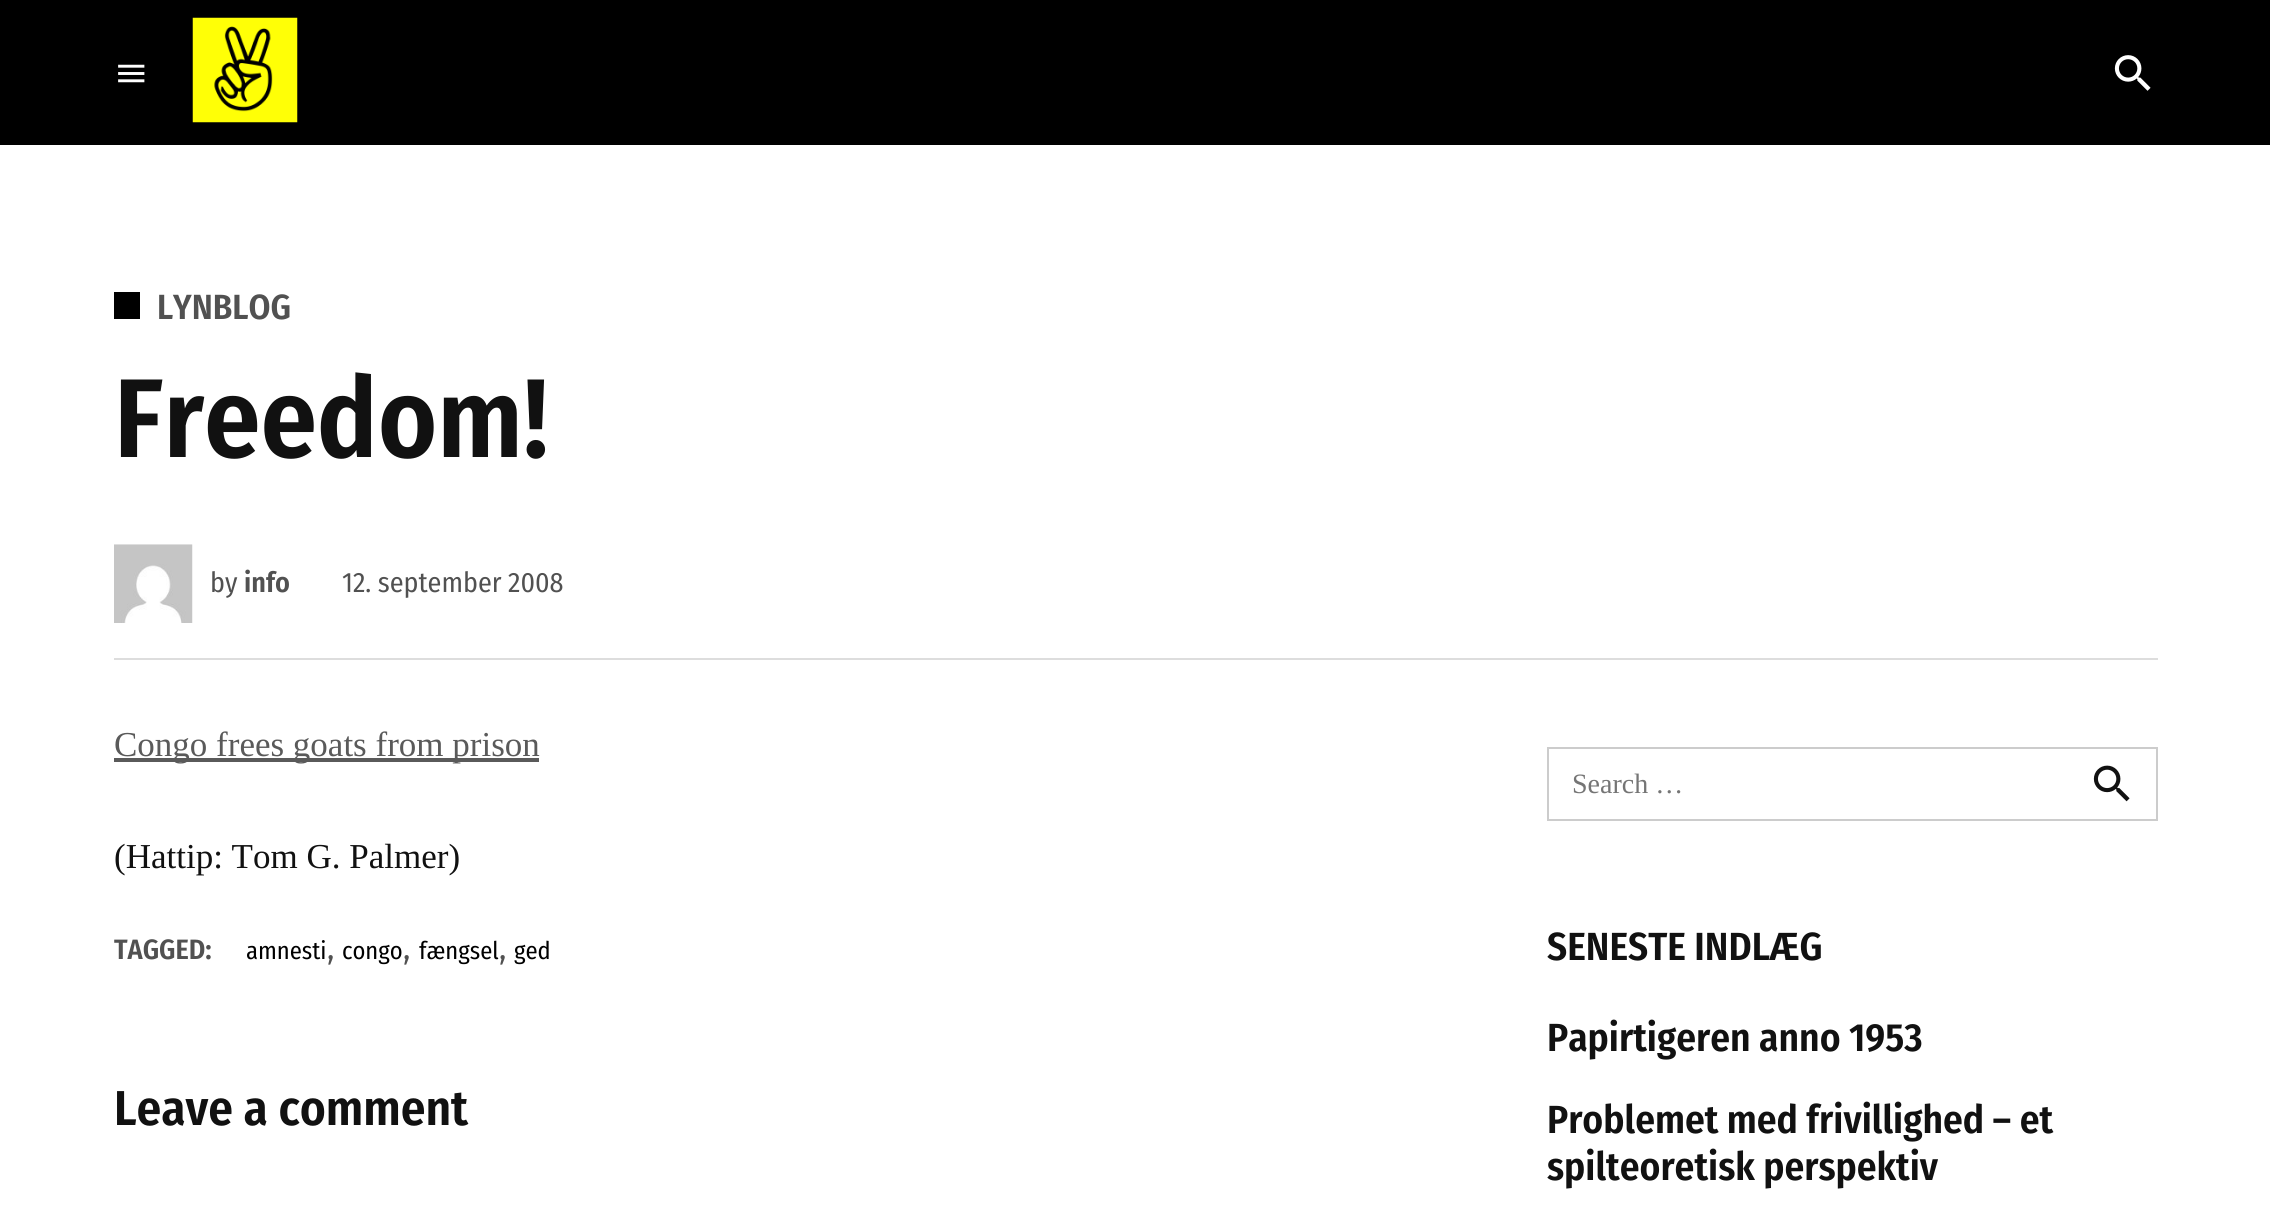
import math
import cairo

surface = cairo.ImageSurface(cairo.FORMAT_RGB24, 2270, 1214)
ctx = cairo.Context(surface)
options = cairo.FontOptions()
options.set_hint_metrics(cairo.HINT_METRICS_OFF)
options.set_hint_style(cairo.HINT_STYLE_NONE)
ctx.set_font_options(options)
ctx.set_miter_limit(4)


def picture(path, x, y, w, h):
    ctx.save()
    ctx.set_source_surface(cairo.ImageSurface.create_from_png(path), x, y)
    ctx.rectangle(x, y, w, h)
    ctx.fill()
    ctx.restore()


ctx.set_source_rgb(1, 1, 1)
ctx.paint()
ctx.set_source_rgb(0, 0, 0)
ctx.rectangle(0, 0, 2270, 145)
ctx.fill()
picture("img1.png", 118, 64, 27, 19)
picture("img2.png", 192, 17, 106, 106)
picture("img3.png", 2114, 55, 37, 36)
ctx.set_source_rgb(0.867, 0.867, 0.867)
ctx.rectangle(114, 658, 2044, 2)
ctx.fill()
ctx.set_source_rgb(0, 0, 0)
ctx.rectangle(114, 292, 26, 27)
ctx.fill()
ctx.select_font_face("Fira Sans Condensed SemiBold")
ctx.set_font_size(35)
ctx.set_source_rgb(0.318, 0.318, 0.318)
ctx.move_to(157, 319)
ctx.show_text("LYNBLOG")
ctx.set_font_size(112)
ctx.set_source_rgb(0.067, 0.067, 0.067)
ctx.move_to(114, 457)
ctx.show_text("Freedom!")
picture("img4.png", 114, 544, 79, 79)
ctx.select_font_face("Fira Sans Condensed")
ctx.set_font_size(28)
ctx.set_source_rgb(0.318, 0.318, 0.318)
ctx.move_to(210, 592)
ctx.show_text("by")
ctx.select_font_face("Fira Sans Condensed SemiBold")
ctx.move_to(244, 592)
ctx.show_text("info")
ctx.select_font_face("Fira Sans Condensed")
ctx.move_to(342, 592)
ctx.show_text("12. september 2008")
ctx.set_source_rgb(0.353, 0.353, 0.353)
ctx.rectangle(114, 758, 425, 4)
ctx.fill()
ctx.select_font_face("Liberation Serif")
ctx.set_font_size(35)
ctx.move_to(114, 756)
ctx.show_text("Congo frees goats from prison")
ctx.set_source_rgb(0.067, 0.067, 0.067)
ctx.move_to(114, 868)
ctx.show_text("(Hattip: Tom G. Palmer)")
ctx.select_font_face("Fira Sans Condensed SemiBold")
ctx.set_font_size(28)
ctx.set_source_rgb(0.318, 0.318, 0.318)
ctx.move_to(114, 959)
ctx.show_text("TAGGED:")
ctx.select_font_face("Fira Sans Condensed")
ctx.set_font_size(24.5)
ctx.set_source_rgb(0, 0, 0)
ctx.move_to(246, 959)
ctx.show_text("amnesti")
ctx.set_font_size(35)
ctx.set_source_rgb(0.318, 0.318, 0.318)
ctx.move_to(327, 959)
ctx.show_text(",")
ctx.set_font_size(24.5)
ctx.set_source_rgb(0, 0, 0)
ctx.move_to(342, 959)
ctx.show_text("congo")
ctx.set_font_size(35)
ctx.set_source_rgb(0.318, 0.318, 0.318)
ctx.move_to(403, 959)
ctx.show_text(",")
ctx.set_font_size(24.5)
ctx.set_source_rgb(0, 0, 0)
ctx.move_to(419, 959)
ctx.show_text("fængsel")
ctx.set_font_size(35)
ctx.set_source_rgb(0.318, 0.318, 0.318)
ctx.move_to(499, 959)
ctx.show_text(",")
ctx.set_font_size(24.5)
ctx.set_source_rgb(0, 0, 0)
ctx.move_to(514, 959)
ctx.show_text("ged")
ctx.select_font_face("Fira Sans Condensed SemiBold")
ctx.set_font_size(49)
ctx.set_source_rgb(0.067, 0.067, 0.067)
ctx.move_to(114, 1125)
ctx.show_text("Leave a comment")
ctx.rectangle(1548, 748, 609, 72)
ctx.set_source_rgb(0.8, 0.8, 0.8)
ctx.stroke()
ctx.select_font_face("Liberation Serif")
ctx.set_font_size(28)
ctx.set_source_rgb(0.459, 0.459, 0.459)
ctx.move_to(1572, 793)
ctx.show_text("Search …")
picture("img5.png", 2093, 765, 37, 37)
ctx.select_font_face("Fira Sans Condensed SemiBold")
ctx.set_font_size(39.25)
ctx.set_source_rgb(0.067, 0.067, 0.067)
ctx.move_to(1547, 960)
ctx.show_text("SENESTE INDLÆG")
ctx.move_to(1547, 1051)
ctx.show_text("Papirtigeren anno 1953")
ctx.move_to(1547, 1133)
ctx.show_text("Problemet med frivillighed – et")
ctx.move_to(1547, 1180)
ctx.show_text("spilteoretisk perspektiv")
surface.write_to_png("page.png")
